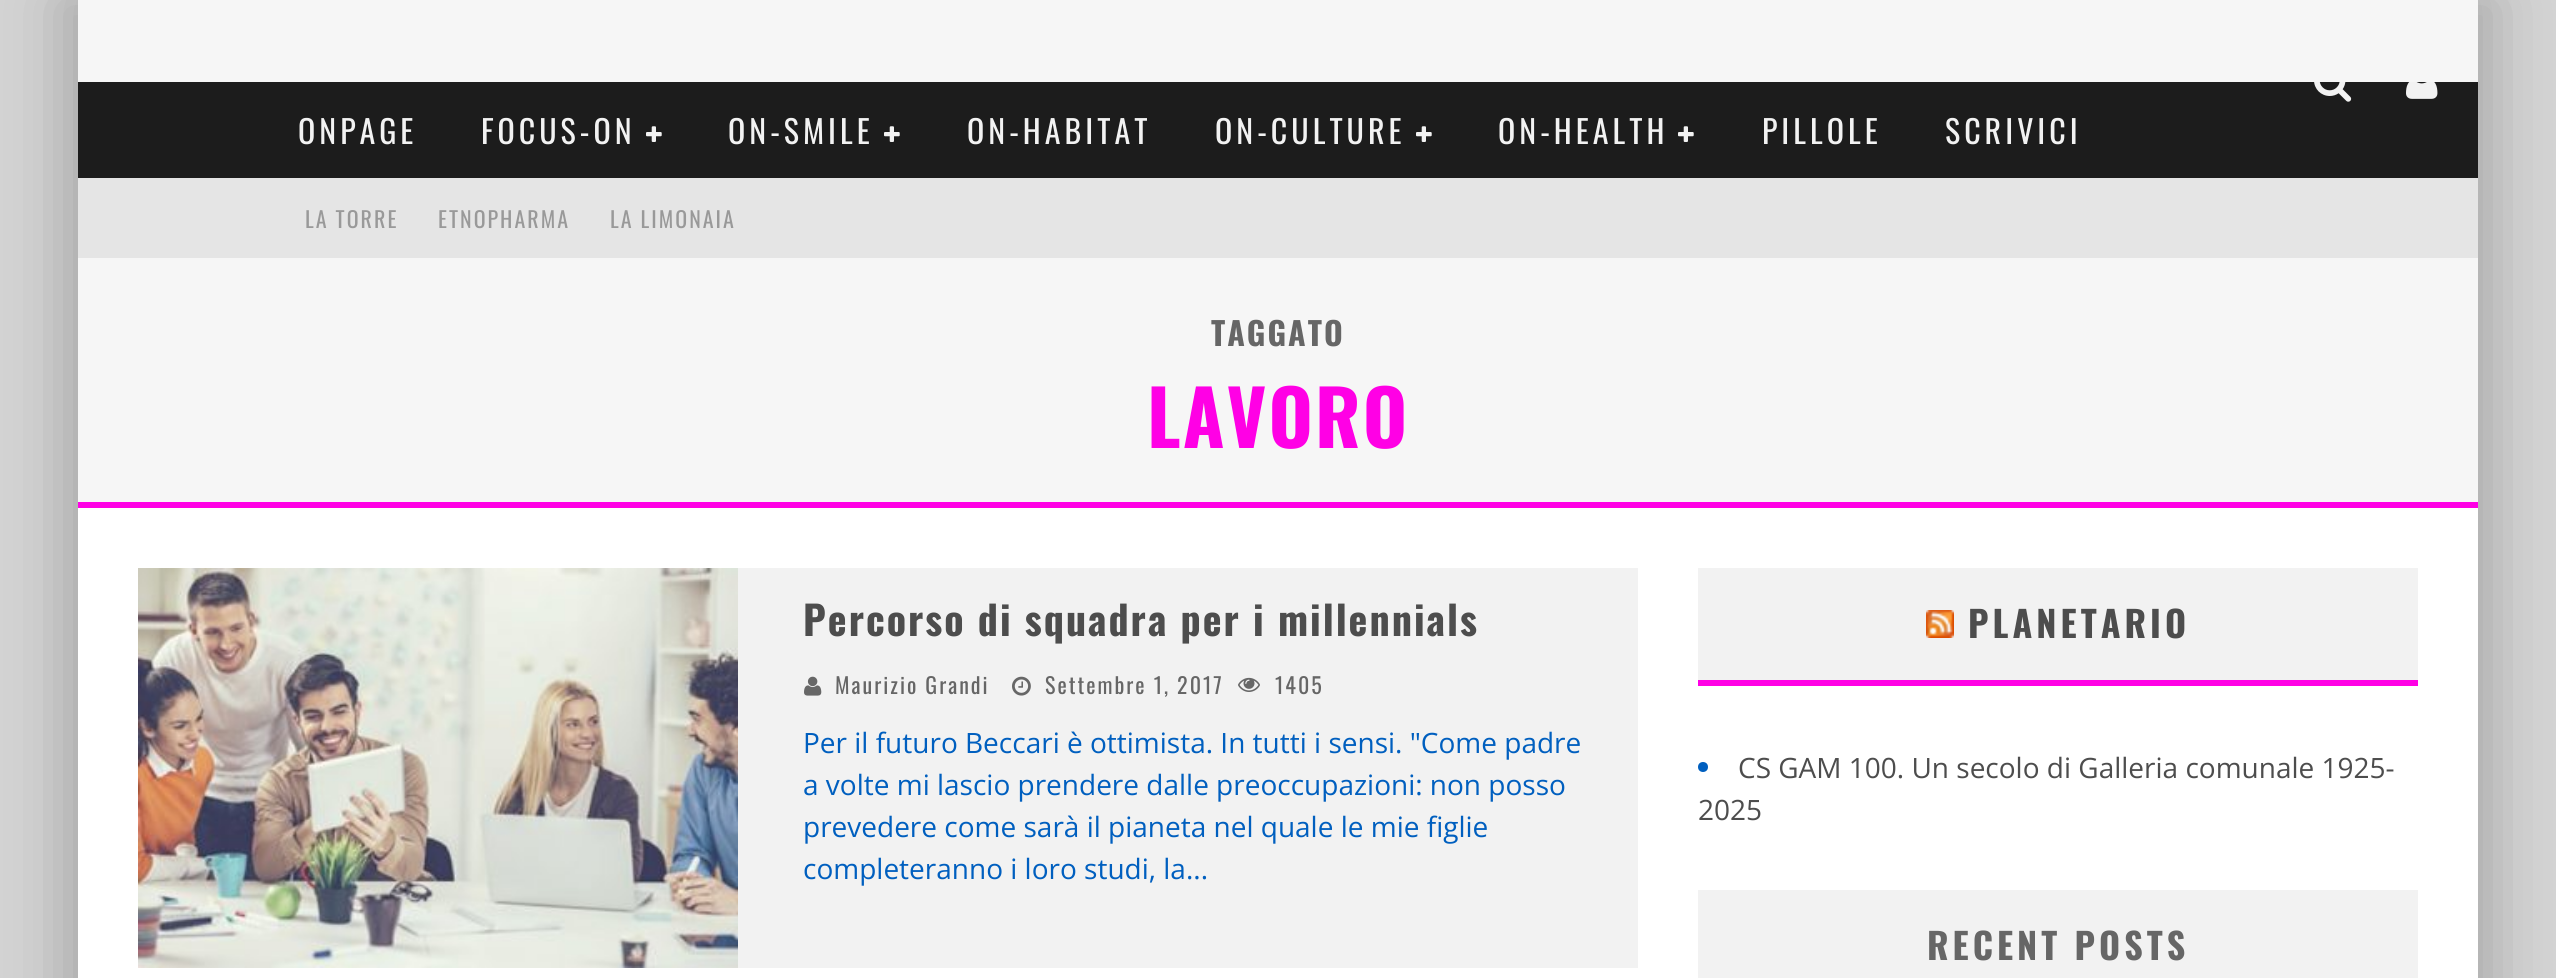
import math
import cairo

surface = cairo.ImageSurface(cairo.FORMAT_RGB24, 2556, 978)
ctx = cairo.Context(surface)
options = cairo.FontOptions()
options.set_hint_metrics(cairo.HINT_METRICS_OFF)
options.set_hint_style(cairo.HINT_STYLE_NONE)
ctx.set_font_options(options)
ctx.set_miter_limit(4)


def spaced_text(x, y, s, letter, word):
    ctx.move_to(x, y)
    for ch in s:
        ctx.show_text(ch)
        ctx.rel_move_to(letter + word * (ch == ' '), 0)


def round_rect(x, y, w, h, r):
    ctx.new_sub_path()
    for i, (u, v) in enumerate([(x + w - r, y + h - r), (x + r, y + h - r), (x + r, y + r), (x + w - r, y + r)]):
        ctx.arc(u, v, r, i * math.pi / 2, (i + 1) * math.pi / 2)
    ctx.close_path()


def shadow(x, y, w, h, r, blur, alpha):
    ctx.push_group_with_content(cairo.CONTENT_ALPHA)
    ctx.set_operator(cairo.OPERATOR_SOURCE)
    for i in range(15, -16, -2):
        e = blur * i / 6
        if min(w, h) + 2 * e > 0:
            ctx.set_source_rgba(0, 0, 0, alpha * math.erfc((i - 1) / 8.5) / 2)
            round_rect(x - e, y - e, w + 2 * e, h + 2 * e, max(0, min(r + e + blur * .6, min(w, h) / 2 + e)))
            ctx.fill()
    ctx.mask(ctx.pop_group())


def picture(path, x, y, w, h):
    ctx.save()
    ctx.set_source_surface(cairo.ImageSurface.create_from_png(path), x, y)
    ctx.rectangle(x, y, w, h)
    ctx.fill()
    ctx.restore()


ctx.set_source_rgb(0.827, 0.827, 0.827)
ctx.paint()
ctx.set_source_rgb(0, 0, 0)
shadow(58, 0, 2400, 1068, 0, 30, 0.15)
shadow(98, 0, 2400, 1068, 0, 30, 0.15)
ctx.set_source_rgb(0.961, 0.961, 0.961)
ctx.rectangle(78, 0, 2400, 82)
ctx.fill()
ctx.set_source_rgb(0.11, 0.11, 0.11)
ctx.rectangle(78, 82, 2400, 96)
ctx.fill()
picture("img1.png", 2314, 82, 38, 20)
picture("img2.png", 2406, 82, 32, 17)
ctx.select_font_face("Oswald")
ctx.set_font_size(32)
ctx.set_source_rgb(0.949, 0.949, 0.949)
spaced_text(298, 144, "ONPAGE", 4, 0)
spaced_text(481, 144, "FOCUS-ON", 4, 0)
picture("img3.png", 646, 126, 16, 16)
spaced_text(728, 144, "ON-SMILE", 4, 0)
picture("img3.png", 884, 126, 16, 16)
spaced_text(967, 144, "ON-HABITAT", 4, 0)
spaced_text(1215, 144, "ON-CULTURE", 4, 0)
picture("img3.png", 1416, 126, 16, 16)
spaced_text(1498, 144, "ON-HEALTH", 4, 0)
picture("img3.png", 1678, 126, 16, 16)
spaced_text(1762, 144, "PILLOLE", 4, 0)
spaced_text(1945, 144, "SCRIVICI", 4, 0)
ctx.set_source_rgb(0.898, 0.898, 0.898)
ctx.rectangle(78, 178, 2400, 80)
ctx.fill()
ctx.set_font_size(22)
ctx.set_source_rgb(0.6, 0.6, 0.6)
spaced_text(305, 228, "LA TORRE", 2, 0)
spaced_text(438, 228, "ETNOPHARMA", 2, 0)
spaced_text(610, 228, "LA LIMONAIA", 2, 0)
ctx.set_source_rgb(1, 1, 1)
ctx.rectangle(78, 508, 2400, 470)
ctx.fill()
ctx.set_source_rgb(0.961, 0.961, 0.961)
ctx.rectangle(78, 258, 2400, 244)
ctx.fill()
ctx.set_source_rgb(1, 0, 0.898)
ctx.rectangle(78, 502, 2400, 6)
ctx.fill()
ctx.select_font_face("Oswald", cairo.FONT_SLANT_NORMAL, cairo.FONT_WEIGHT_BOLD)
ctx.set_font_size(32)
ctx.set_source_rgb(0.4, 0.4, 0.4)
spaced_text(1211, 346, "TAGGATO", 2, 0)
ctx.set_font_size(76)
ctx.set_source_rgb(1, 0, 0.898)
spaced_text(1147, 448, "LAVORO", 2, 0)
ctx.set_source_rgb(0.949, 0.949, 0.949)
ctx.rectangle(738, 568, 900, 400)
ctx.fill()
picture("img4.png", 138, 568, 600, 400)
ctx.set_font_size(40)
ctx.set_source_rgb(0.302, 0.302, 0.302)
spaced_text(803, 636, "Percorso di squadra per i millennials", 2, 0)
picture("img5.png", 804, 676, 18, 20)
ctx.select_font_face("Oswald")
ctx.set_font_size(22)
ctx.set_source_rgb(0.4, 0.4, 0.4)
spaced_text(835, 694, "Maurizio Grandi", 2, 0)
picture("img6.png", 1012, 676, 19, 20)
spaced_text(1045, 694, "Settembre 1, 2017", 2, 0)
picture("img7.png", 1238, 677, 22, 15)
spaced_text(1275, 694, "1405", 2, 0)
ctx.select_font_face("Open Sans")
ctx.set_font_size(28)
ctx.set_source_rgb(0, 0.373, 0.749)
ctx.move_to(803, 753)
ctx.show_text("Per il futuro Beccari è ottimista. In tutti i sensi. \"Come padre")
ctx.move_to(803, 795)
ctx.show_text("a volte mi lascio prendere dalle preoccupazioni: non posso")
ctx.move_to(803, 837)
ctx.show_text("prevedere come sarà il pianeta nel quale le mie figlie")
ctx.move_to(803, 879)
ctx.show_text("completeranno i loro studi, la...")
ctx.set_source_rgb(0.949, 0.949, 0.949)
ctx.rectangle(1698, 568, 720, 112)
ctx.fill()
ctx.set_source_rgb(1, 0, 0.898)
ctx.rectangle(1698, 680, 720, 6)
ctx.fill()
picture("img8.png", 1926, 610, 28, 28)
ctx.select_font_face("Oswald", cairo.FONT_SLANT_NORMAL, cairo.FONT_WEIGHT_BOLD)
ctx.set_font_size(36)
ctx.set_source_rgb(0.302, 0.302, 0.302)
spaced_text(1968, 638, "PLANETARIO", 4, 0)
ctx.set_source_rgb(0, 0.373, 0.749)
ctx.new_path()
ctx.arc(1703, 767, 5, 0, 2 * math.pi)
ctx.fill()
ctx.select_font_face("Open Sans")
ctx.set_font_size(28)
ctx.set_source_rgb(0.302, 0.302, 0.302)
ctx.move_to(1738, 778)
ctx.show_text("CS GAM 100. Un secolo di Galleria comunale 1925-")
ctx.move_to(1698, 820)
ctx.show_text("2025")
ctx.set_source_rgb(0.949, 0.949, 0.949)
ctx.rectangle(1698, 890, 720, 88)
ctx.fill()
ctx.select_font_face("Oswald", cairo.FONT_SLANT_NORMAL, cairo.FONT_WEIGHT_BOLD)
ctx.set_font_size(36)
ctx.set_source_rgb(0.4, 0.4, 0.4)
spaced_text(1927, 960, "RECENT POSTS", 4, 0)
surface.write_to_png("page.png")
